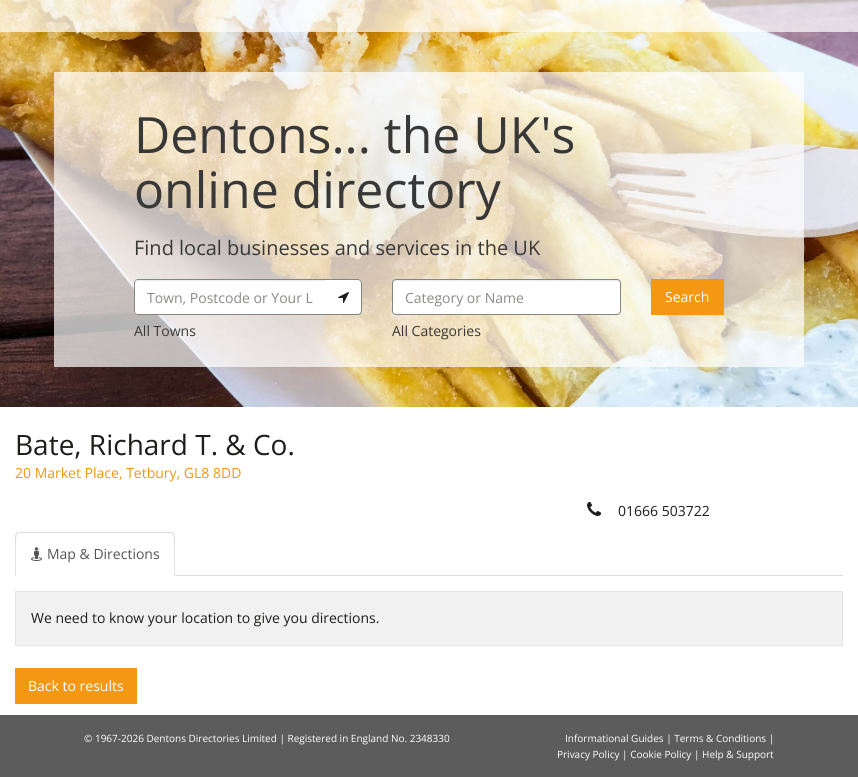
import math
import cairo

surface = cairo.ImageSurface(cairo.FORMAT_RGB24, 858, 777)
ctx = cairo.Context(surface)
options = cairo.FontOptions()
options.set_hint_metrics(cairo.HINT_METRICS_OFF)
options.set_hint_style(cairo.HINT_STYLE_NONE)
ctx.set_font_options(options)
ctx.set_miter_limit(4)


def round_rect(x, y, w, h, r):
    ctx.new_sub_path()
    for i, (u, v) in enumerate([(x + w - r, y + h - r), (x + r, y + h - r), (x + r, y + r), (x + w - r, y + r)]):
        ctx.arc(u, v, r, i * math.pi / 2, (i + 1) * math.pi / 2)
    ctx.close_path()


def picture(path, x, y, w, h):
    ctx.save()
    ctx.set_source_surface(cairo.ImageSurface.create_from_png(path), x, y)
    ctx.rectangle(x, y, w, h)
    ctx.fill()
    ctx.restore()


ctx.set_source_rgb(1, 1, 1)
ctx.paint()
picture("img1.png", 0, 0, 858, 407)
ctx.set_source_rgba(1, 1, 1, 0.7)
ctx.rectangle(0, 0, 858, 32)
ctx.fill()
ctx.rectangle(54, 72, 750, 295)
ctx.fill()
ctx.select_font_face("Open Sans")
ctx.set_font_size(50)
ctx.set_source_rgb(0.22, 0.22, 0.22)
ctx.move_to(134, 153)
ctx.show_text("Dentons... the UK's")
ctx.move_to(134, 208)
ctx.show_text("online directory")
ctx.set_font_size(20)
ctx.move_to(134, 255)
ctx.show_text("Find local businesses and services in the UK")
ctx.set_source_rgb(1, 1, 1)
ctx.new_path()
ctx.move_to(138, 279)
ctx.line_to(326, 279)
ctx.line_to(326, 315)
ctx.line_to(138, 315)
ctx.curve_to(136, 315, 134, 313, 134, 311)
ctx.line_to(134, 283)
ctx.curve_to(134, 281, 136, 279, 138, 279)
ctx.close_path()
ctx.fill()
ctx.set_source_rgb(0.925, 0.925, 0.925)
ctx.new_path()
ctx.move_to(138, 281)
ctx.line_to(326, 281)
ctx.line_to(326, 280)
ctx.line_to(138, 280)
ctx.curve_to(136, 280, 135, 282, 135, 284)
ctx.curve_to(135, 282, 136, 281, 138, 281)
ctx.close_path()
ctx.fill()
ctx.set_source_rgb(0.522, 0.522, 0.502)
ctx.set_fill_rule(cairo.FILL_RULE_EVEN_ODD)
ctx.new_path()
ctx.move_to(138, 279)
ctx.line_to(326, 279)
ctx.line_to(326, 315)
ctx.line_to(138, 315)
ctx.curve_to(136, 315, 134, 313, 134, 311)
ctx.line_to(134, 283)
ctx.curve_to(134, 281, 136, 279, 138, 279)
ctx.close_path()
ctx.move_to(138, 280)
ctx.line_to(326, 280)
ctx.line_to(326, 314)
ctx.line_to(138, 314)
ctx.curve_to(136, 314, 135, 313, 135, 311)
ctx.line_to(135, 283)
ctx.curve_to(135, 281, 136, 280, 138, 280)
ctx.close_path()
ctx.fill()
ctx.set_font_size(14)
ctx.set_source_rgb(0.545, 0.541, 0.533)
ctx.move_to(147, 303)
ctx.show_text("Town, Postcode or Your L")
ctx.set_source_rgb(1, 1, 1)
ctx.new_path()
ctx.move_to(326, 279)
ctx.line_to(358, 279)
ctx.curve_to(360, 279, 362, 281, 362, 283)
ctx.line_to(362, 311)
ctx.curve_to(362, 313, 360, 315, 358, 315)
ctx.line_to(326, 315)
ctx.close_path()
ctx.fill()
ctx.set_source_rgb(0.522, 0.522, 0.502)
ctx.new_path()
ctx.move_to(326, 279)
ctx.line_to(358, 279)
ctx.curve_to(360, 279, 362, 281, 362, 283)
ctx.line_to(362, 311)
ctx.curve_to(362, 313, 360, 315, 358, 315)
ctx.line_to(326, 315)
ctx.close_path()
ctx.move_to(326, 280)
ctx.line_to(358, 280)
ctx.curve_to(359.5, 280, 361, 281.5, 361, 283)
ctx.line_to(361, 311)
ctx.curve_to(361, 312.5, 359.5, 314, 358, 314)
ctx.line_to(326, 314)
ctx.close_path()
ctx.fill()
picture("img2.png", 338, 292, 11, 11)
ctx.set_source_rgb(0.22, 0.22, 0.22)
ctx.move_to(134, 336)
ctx.show_text("All Towns")
ctx.set_source_rgb(1, 1, 1)
round_rect(392, 279, 229, 36, 4)
ctx.fill()
ctx.set_source_rgb(0.925, 0.925, 0.925)
ctx.set_fill_rule(cairo.FILL_RULE_WINDING)
ctx.new_path()
ctx.move_to(396, 281)
ctx.line_to(617, 281)
ctx.curve_to(619, 281, 620, 282, 620, 284)
ctx.line_to(620, 283)
ctx.curve_to(620, 281, 619, 280, 617, 280)
ctx.line_to(396, 280)
ctx.curve_to(394, 280, 393, 281, 393, 283)
ctx.line_to(393, 284)
ctx.curve_to(393, 282, 394, 281, 396, 281)
ctx.close_path()
ctx.fill()
round_rect(392.5, 279.5, 228, 35, 3.5)
ctx.set_source_rgb(0.522, 0.522, 0.502)
ctx.set_line_width(1)
ctx.stroke()
ctx.set_source_rgb(0.545, 0.541, 0.533)
ctx.move_to(405, 303)
ctx.show_text("Category or Name")
ctx.set_source_rgb(0.22, 0.22, 0.22)
ctx.move_to(392, 336)
ctx.show_text("All Categories")
ctx.set_source_rgb(0.957, 0.592, 0.071)
ctx.rectangle(651, 279, 73, 36)
ctx.fill()
ctx.set_source_rgb(1, 1, 1)
ctx.move_to(665, 302)
ctx.show_text("Search")
ctx.set_font_size(28)
ctx.set_source_rgb(0.114, 0.114, 0.11)
ctx.move_to(15, 455)
ctx.show_text("Bate, Richard T. & Co.")
ctx.set_font_size(14)
ctx.set_source_rgb(0.957, 0.592, 0.071)
ctx.move_to(15, 478)
ctx.show_text("20 Market Place, Tetbury, GL8 8DD")
picture("img3.png", 587, 501, 15, 15)
ctx.set_source_rgb(0.114, 0.114, 0.11)
ctx.move_to(618, 516)
ctx.show_text("01666 503722")
ctx.set_source_rgb(0.867, 0.867, 0.867)
ctx.rectangle(175, 575, 668, 1)
ctx.fill()
ctx.new_path()
ctx.move_to(19, 532)
ctx.line_to(16, 533)
ctx.line_to(17, 534)
ctx.line_to(19, 533)
ctx.line_to(171, 533)
ctx.line_to(173, 534)
ctx.line_to(174, 533)
ctx.line_to(171, 532)
ctx.close_path()
ctx.fill()
ctx.new_path()
ctx.move_to(175, 576)
ctx.line_to(175, 536)
ctx.curve_to(175, 535, 174, 534, 174, 533)
ctx.line_to(173, 534)
ctx.curve_to(175, 536, 174, 570, 174, 575)
ctx.close_path()
ctx.fill()
ctx.new_path()
ctx.move_to(15, 576)
ctx.line_to(16, 575)
ctx.curve_to(16, 570, 15, 536, 17, 534)
ctx.line_to(16, 533)
ctx.line_to(15, 536)
ctx.close_path()
ctx.fill()
picture("img4.png", 31, 547, 11, 14)
ctx.set_source_rgb(0.333, 0.333, 0.333)
ctx.move_to(47, 559)
ctx.show_text("Map & Directions")
ctx.set_source_rgb(0.945, 0.945, 0.945)
ctx.rectangle(15.5, 591.5, 827, 54)
ctx.fill_preserve()
ctx.set_source_rgb(0.894, 0.894, 0.894)
ctx.stroke()
ctx.set_source_rgb(0.114, 0.114, 0.11)
ctx.move_to(31, 623)
ctx.show_text("We need to know your location to give you directions.")
ctx.set_source_rgb(0.957, 0.592, 0.071)
ctx.rectangle(15, 668, 122, 36)
ctx.fill()
ctx.set_source_rgb(1, 1, 1)
ctx.move_to(28, 691)
ctx.show_text("Back to results")
ctx.set_source_rgb(0.361, 0.361, 0.361)
ctx.rectangle(0, 715, 858, 62)
ctx.fill()
ctx.set_font_size(10)
ctx.set_source_rgb(1, 1, 1)
ctx.move_to(84, 742)
ctx.show_text("© 1967-2026 Dentons Directories Limited | Registered in England No. 2348330")
ctx.move_to(565, 742)
ctx.show_text("Informational Guides | Terms & Conditions |")
ctx.move_to(557, 758)
ctx.show_text("Privacy Policy | Cookie Policy | Help & Support")
surface.write_to_png("page.png")
